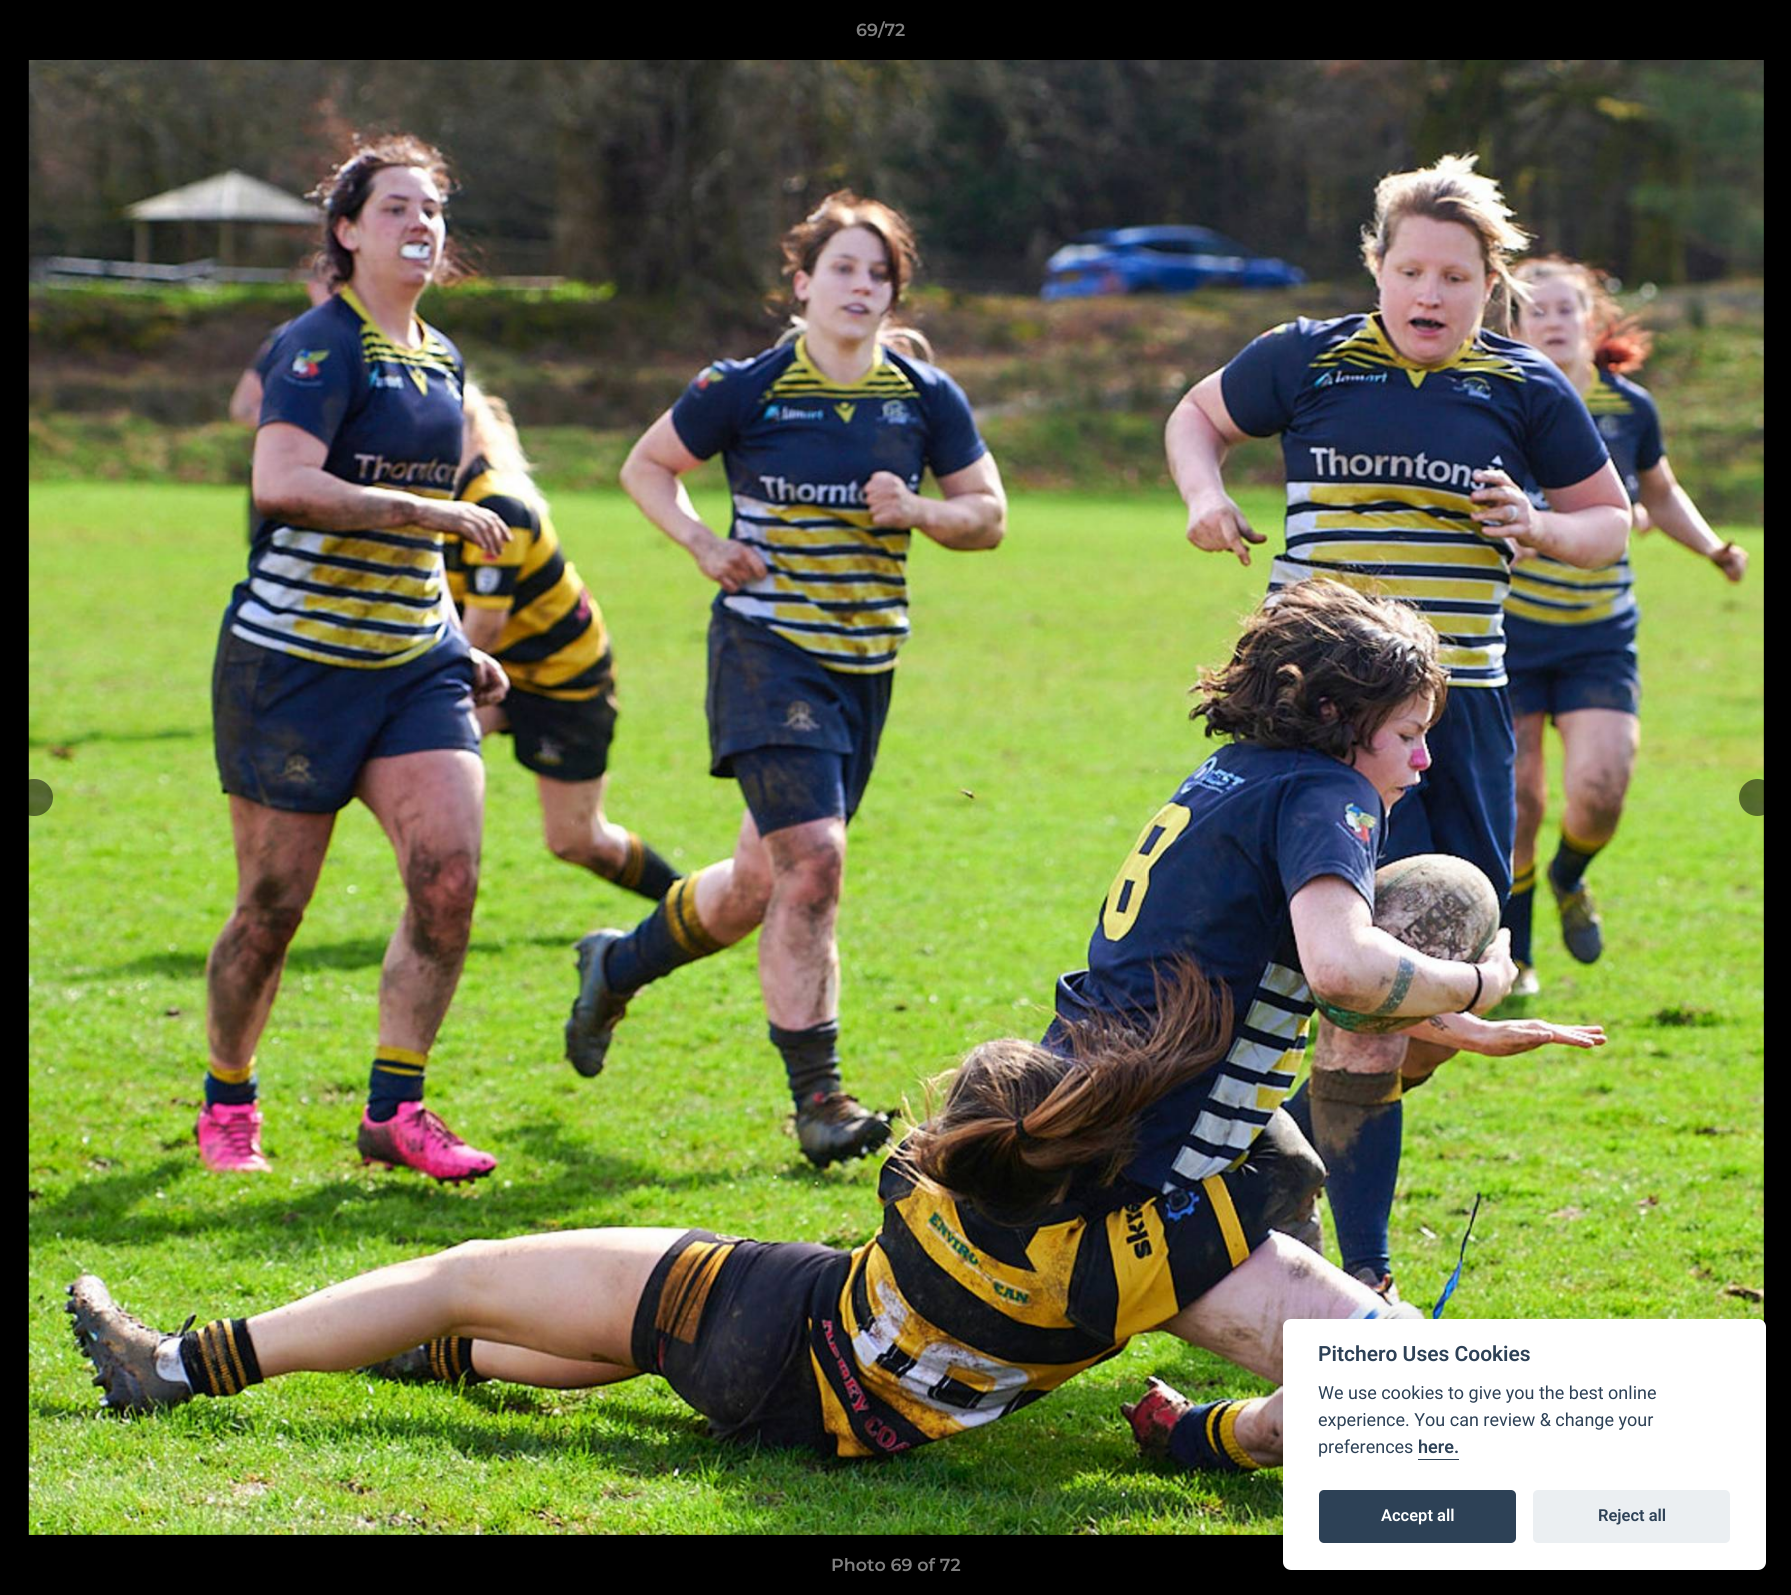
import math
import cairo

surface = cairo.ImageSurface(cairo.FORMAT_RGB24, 1791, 1595)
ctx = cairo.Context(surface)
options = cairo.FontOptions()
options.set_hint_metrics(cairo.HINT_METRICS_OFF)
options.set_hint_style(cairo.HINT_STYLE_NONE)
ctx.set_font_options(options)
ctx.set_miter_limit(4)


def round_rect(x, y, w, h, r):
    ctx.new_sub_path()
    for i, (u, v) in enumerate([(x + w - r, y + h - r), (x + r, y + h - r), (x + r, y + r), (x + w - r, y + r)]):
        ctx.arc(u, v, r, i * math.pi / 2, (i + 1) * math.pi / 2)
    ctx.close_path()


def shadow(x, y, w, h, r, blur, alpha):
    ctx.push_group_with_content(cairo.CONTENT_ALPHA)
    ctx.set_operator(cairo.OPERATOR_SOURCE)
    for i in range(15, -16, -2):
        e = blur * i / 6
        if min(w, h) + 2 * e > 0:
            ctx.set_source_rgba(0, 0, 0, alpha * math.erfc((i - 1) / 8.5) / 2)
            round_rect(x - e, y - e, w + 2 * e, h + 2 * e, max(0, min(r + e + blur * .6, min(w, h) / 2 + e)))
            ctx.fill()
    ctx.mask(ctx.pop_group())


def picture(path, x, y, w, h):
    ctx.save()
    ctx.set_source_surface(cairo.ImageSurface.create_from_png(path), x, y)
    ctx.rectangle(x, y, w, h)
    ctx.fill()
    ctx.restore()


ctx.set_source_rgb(0, 0, 0)
ctx.paint()
ctx.select_font_face("Montserrat SemiBold")
ctx.set_font_size(17.5)
ctx.set_source_rgb(0.502, 0.502, 0.502)
ctx.move_to(856, 36)
ctx.show_text("69/72")
picture("img1.png", 28, 60, 1736, 1475)
ctx.set_source_rgba(0, 0, 0, 0.5)
round_rect(15, 779, 38, 37, 18.5)
ctx.fill()
ctx.arc(1757.5, 797.5, 18.5, 0, 2 * math.pi)
ctx.fill()
ctx.set_source_rgb(0.502, 0.502, 0.502)
ctx.move_to(831, 1571)
ctx.show_text("Photo 69 of 72")
ctx.set_source_rgb(0.008, 0.008, 0.012)
shadow(1283, 1331, 483, 252, 8, 19, 0.28)
ctx.set_source_rgb(1, 1, 1)
round_rect(1283, 1319, 483, 251, 8)
ctx.fill()
ctx.select_font_face("Roboto SemiBold")
ctx.set_font_size(21)
ctx.set_source_rgb(0.176, 0.255, 0.337)
ctx.move_to(1318, 1361)
ctx.show_text("Pitchero Uses Cookies")
ctx.select_font_face("Roboto")
ctx.set_font_size(18)
ctx.move_to(1318, 1399)
ctx.show_text("We use cookies to give you the best online")
ctx.move_to(1318, 1426)
ctx.show_text("experience. You can review & change your")
ctx.move_to(1318, 1453)
ctx.show_text("preferences")
ctx.select_font_face("Roboto SemiBold")
ctx.move_to(1418, 1453)
ctx.show_text("here.")
ctx.rectangle(1418, 1459, 41, 1)
ctx.fill()
round_rect(1319, 1490, 197, 53, 5)
ctx.fill()
ctx.set_font_size(16.5)
ctx.set_source_rgb(1, 1, 1)
ctx.move_to(1381, 1521)
ctx.show_text("Accept all")
ctx.set_source_rgb(0.918, 0.937, 0.949)
round_rect(1533, 1490, 197, 53, 5)
ctx.fill()
ctx.set_source_rgb(0.176, 0.255, 0.337)
ctx.move_to(1598, 1521)
ctx.show_text("Reject all")
surface.write_to_png("page.png")
